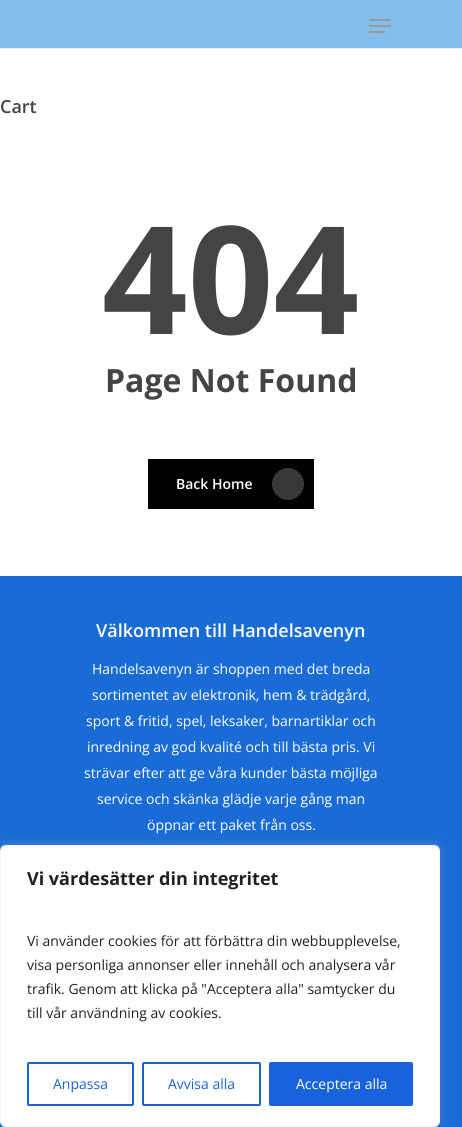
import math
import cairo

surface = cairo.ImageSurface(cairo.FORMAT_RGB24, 462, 1127)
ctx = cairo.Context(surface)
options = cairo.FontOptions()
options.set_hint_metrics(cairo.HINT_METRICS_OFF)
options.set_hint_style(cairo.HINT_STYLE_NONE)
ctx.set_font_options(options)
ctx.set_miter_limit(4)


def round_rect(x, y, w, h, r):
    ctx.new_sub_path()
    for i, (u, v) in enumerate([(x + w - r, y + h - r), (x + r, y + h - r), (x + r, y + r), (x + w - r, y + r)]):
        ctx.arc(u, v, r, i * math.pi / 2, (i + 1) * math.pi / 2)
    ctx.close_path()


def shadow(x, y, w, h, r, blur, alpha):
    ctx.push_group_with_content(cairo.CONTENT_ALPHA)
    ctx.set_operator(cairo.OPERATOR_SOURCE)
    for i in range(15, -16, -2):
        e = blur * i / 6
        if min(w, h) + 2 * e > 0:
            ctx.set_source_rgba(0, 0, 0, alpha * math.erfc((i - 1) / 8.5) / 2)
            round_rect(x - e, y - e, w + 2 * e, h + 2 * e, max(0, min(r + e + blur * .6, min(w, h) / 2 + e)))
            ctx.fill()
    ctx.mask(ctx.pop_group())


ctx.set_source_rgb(1, 1, 1)
ctx.paint()
ctx.set_source_rgb(0.922, 0.922, 0.922)
ctx.rectangle(0, 48, 462, 1)
ctx.fill()
ctx.set_source_rgb(0.51, 0.749, 0.937)
ctx.rectangle(0, 0, 462, 48)
ctx.fill()
ctx.set_source_rgb(0.6, 0.6, 0.6)
ctx.rectangle(369, 19, 22, 2)
ctx.fill()
ctx.rectangle(369, 31, 16, 2)
ctx.fill()
ctx.rectangle(369, 25, 22, 2)
ctx.fill()
ctx.select_font_face("Open Sans SemiBold")
ctx.set_font_size(18)
ctx.set_source_rgb(0.267, 0.267, 0.267)
ctx.move_to(0, 113)
ctx.show_text("Cart")
ctx.select_font_face("Open Sans", cairo.FONT_SLANT_NORMAL, cairo.FONT_WEIGHT_BOLD)
ctx.set_font_size(150)
ctx.move_to(102, 334)
ctx.show_text("404")
ctx.set_font_size(32)
ctx.move_to(105, 392)
ctx.show_text("Page Not Found")
ctx.set_source_rgb(0, 0, 0)
ctx.rectangle(148, 459, 166, 50)
ctx.fill()
ctx.select_font_face("Open Sans SemiBold")
ctx.set_font_size(14)
ctx.set_source_rgb(1, 1, 1)
ctx.move_to(176, 489)
ctx.show_text("Back Home")
ctx.set_source_rgb(0.22, 0.22, 0.22)
ctx.new_path()
ctx.arc(288, 484, 16, 0, 2 * math.pi)
ctx.fill()
ctx.set_source_rgb(0.098, 0.42, 0.839)
ctx.rectangle(0, 576, 462, 551)
ctx.fill()
ctx.set_font_size(18)
ctx.set_source_rgb(1, 1, 1)
ctx.move_to(96, 637)
ctx.show_text("Välkommen till Handelsavenyn")
ctx.select_font_face("Open Sans")
ctx.set_font_size(14)
ctx.move_to(92, 674)
ctx.show_text("Handelsavenyn är shoppen med det breda")
ctx.move_to(92, 700)
ctx.show_text("sortimentet av elektronik, hem & trädgård,")
ctx.move_to(86, 726)
ctx.show_text("sport & fritid, spel, leksaker, barnartiklar och")
ctx.move_to(87, 752)
ctx.show_text("inredning av god kvalité och till bästa pris. Vi")
ctx.move_to(84, 778)
ctx.show_text("strävar efter att ge våra kunder bästa möjliga")
ctx.move_to(97, 804)
ctx.show_text("service och skänka glädje varje gång man")
ctx.move_to(147, 830)
ctx.show_text("öppnar ett paket från oss.")
ctx.set_source_rgb(0.675, 0.671, 0.671)
shadow(0, 844, 440, 282, 6, 5, 0.3)
ctx.set_source_rgb(1, 1, 1)
round_rect(0.5, 845.5, 439, 281, 5.5)
ctx.fill_preserve()
ctx.set_source_rgb(0.957, 0.957, 0.957)
ctx.set_line_width(1)
ctx.stroke()
ctx.select_font_face("Open Sans", cairo.FONT_SLANT_NORMAL, cairo.FONT_WEIGHT_BOLD)
ctx.set_font_size(18)
ctx.set_source_rgb(0.129, 0.129, 0.129)
ctx.move_to(27, 885)
ctx.show_text("Vi värdesätter din integritet")
ctx.select_font_face("Open Sans")
ctx.set_font_size(14)
ctx.move_to(27, 946)
ctx.show_text("Vi använder cookies för att förbättra din webbupplevelse,")
ctx.move_to(27, 970)
ctx.show_text("visa personliga annonser eller innehåll och analysera vår")
ctx.move_to(27, 994)
ctx.show_text("trafik. Genom att klicka på \"Acceptera alla\" samtycker du")
ctx.move_to(27, 1018)
ctx.show_text("till vår användning av cookies.")
round_rect(28, 1063, 105, 42, 1)
ctx.set_source_rgb(0.094, 0.388, 0.863)
ctx.set_line_width(2)
ctx.stroke()
ctx.move_to(53, 1089)
ctx.show_text("Anpassa")
round_rect(143, 1063, 117, 42, 1)
ctx.stroke()
ctx.move_to(168, 1089)
ctx.show_text("Avvisa alla")
round_rect(270, 1063, 142, 42, 1)
ctx.fill_preserve()
ctx.stroke()
ctx.set_source_rgb(1, 1, 1)
ctx.move_to(296, 1089)
ctx.show_text("Acceptera alla")
surface.write_to_png("page.png")
